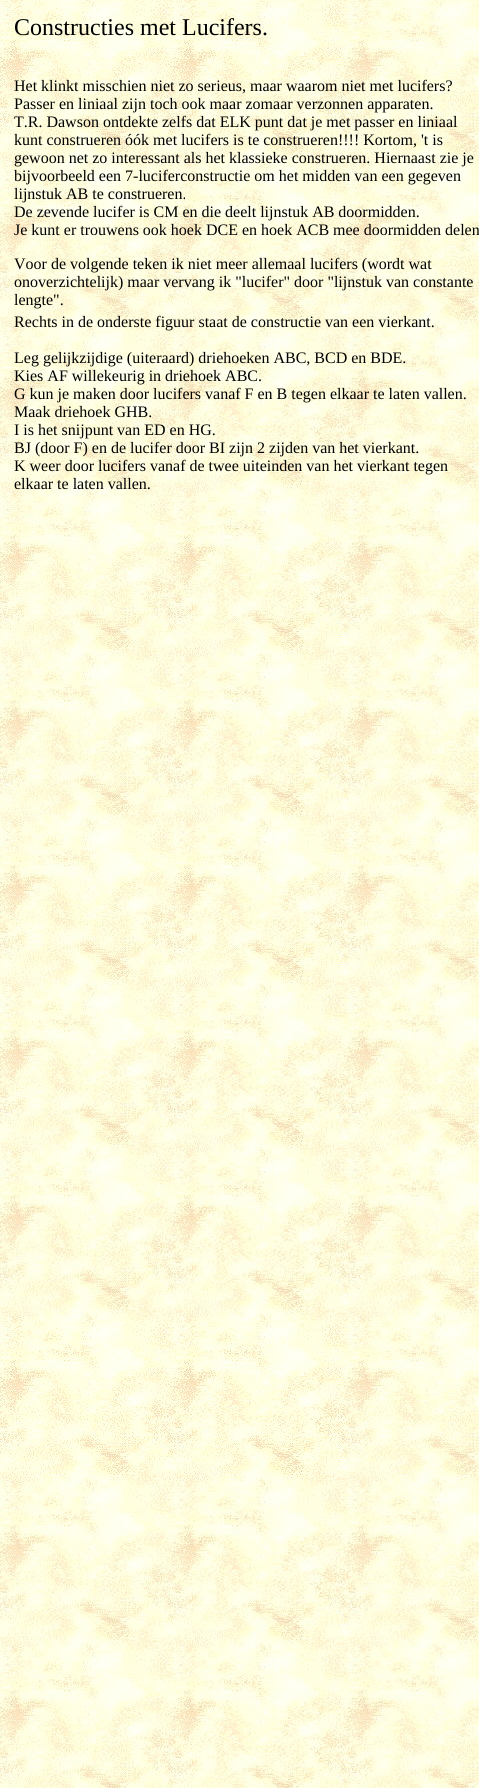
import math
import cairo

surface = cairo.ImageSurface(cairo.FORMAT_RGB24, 479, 1788)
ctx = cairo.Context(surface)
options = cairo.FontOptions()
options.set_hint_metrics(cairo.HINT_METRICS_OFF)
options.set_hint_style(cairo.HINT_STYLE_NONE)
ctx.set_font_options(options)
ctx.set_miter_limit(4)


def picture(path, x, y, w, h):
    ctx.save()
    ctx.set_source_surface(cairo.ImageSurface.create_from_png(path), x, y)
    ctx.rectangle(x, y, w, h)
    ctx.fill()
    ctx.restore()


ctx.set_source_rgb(1, 1, 1)
ctx.paint()
picture("img1.png", 0, 0, 479, 1788)
ctx.select_font_face("Liberation Serif")
ctx.set_font_size(24)
ctx.set_source_rgb(0, 0, 0)
ctx.move_to(14, 35)
ctx.show_text("Constructies met Lucifers.")
ctx.set_font_size(16)
ctx.move_to(14, 91)
ctx.show_text("Het klinkt misschien niet zo serieus, maar waarom niet met lucifers?")
ctx.move_to(14, 109)
ctx.show_text("Passer en liniaal zijn toch ook maar zomaar verzonnen apparaten.")
ctx.move_to(14, 127)
ctx.show_text("T.R. Dawson ontdekte zelfs dat ELK punt dat je met passer en liniaal")
ctx.move_to(14, 145)
ctx.show_text("kunt construeren óók met lucifers is te construeren!!!! Kortom, 't is")
ctx.move_to(14, 163)
ctx.show_text("gewoon net zo interessant als het klassieke construeren. Hiernaast zie je")
ctx.move_to(14, 181)
ctx.show_text("bijvoorbeeld een 7-luciferconstructie om het midden van een gegeven")
ctx.move_to(14, 199)
ctx.show_text("lijnstuk AB te construeren.")
ctx.move_to(14, 217)
ctx.show_text("De zevende lucifer is CM en die deelt lijnstuk AB doormidden.")
ctx.move_to(14, 235)
ctx.show_text("Je kunt er trouwens ook hoek DCE en hoek ACB mee doormidden delen")
ctx.move_to(14, 269)
ctx.show_text("Voor de volgende teken ik niet meer allemaal lucifers (wordt wat")
ctx.move_to(14, 287)
ctx.show_text("onoverzichtelijk) maar vervang ik \"lucifer\" door \"lijnstuk van constante")
ctx.move_to(14, 305)
ctx.show_text("lengte\".")
ctx.move_to(14, 327)
ctx.show_text("Rechts in de onderste figuur staat de constructie van een vierkant.")
ctx.move_to(14, 363)
ctx.show_text("Leg gelijkzijdige (uiteraard) driehoeken ABC, BCD en BDE.")
ctx.move_to(14, 381)
ctx.show_text("Kies AF willekeurig in driehoek ABC.")
ctx.move_to(14, 399)
ctx.show_text("G kun je maken door lucifers vanaf F en B tegen elkaar te laten vallen.")
ctx.move_to(14, 417)
ctx.show_text("Maak driehoek GHB.")
ctx.move_to(14, 435)
ctx.show_text("I is het snijpunt van ED en HG.")
ctx.move_to(14, 453)
ctx.show_text("BJ (door F) en de lucifer door BI zijn 2 zijden van het vierkant.")
ctx.move_to(14, 471)
ctx.show_text("K weer door lucifers vanaf de twee uiteinden van het vierkant tegen")
ctx.move_to(14, 489)
ctx.show_text("elkaar te laten vallen.")
surface.write_to_png("page.png")
